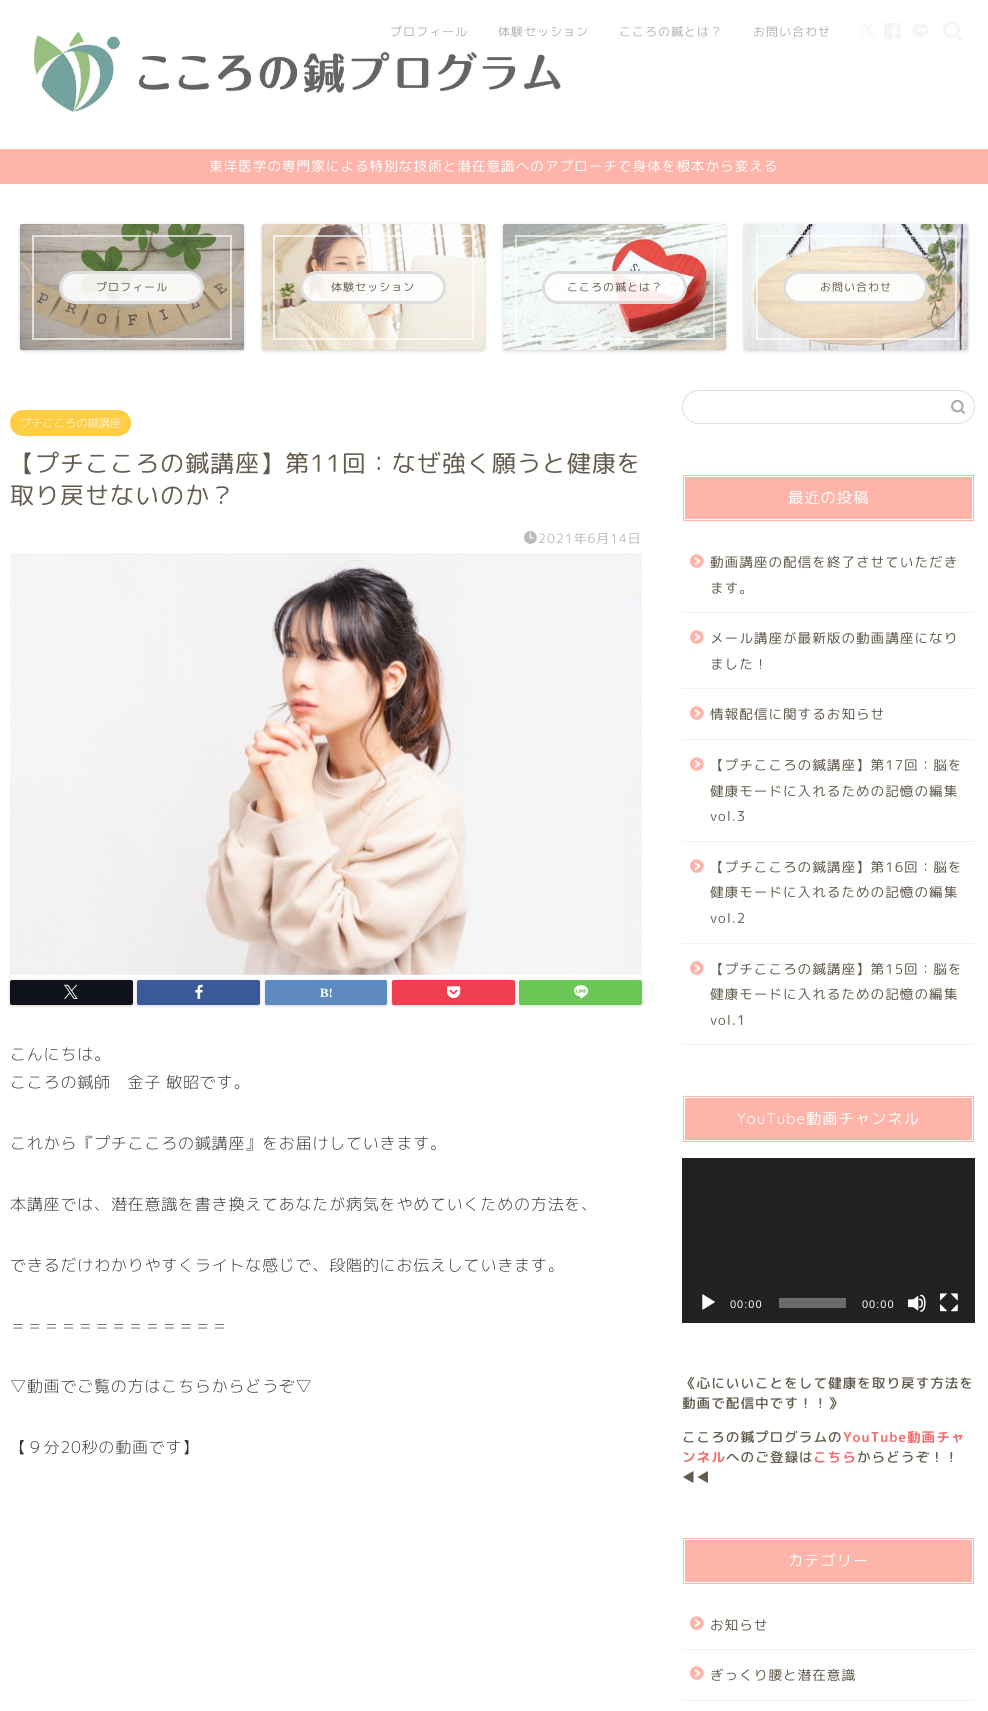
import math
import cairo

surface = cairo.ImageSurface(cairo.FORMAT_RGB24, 988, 1711)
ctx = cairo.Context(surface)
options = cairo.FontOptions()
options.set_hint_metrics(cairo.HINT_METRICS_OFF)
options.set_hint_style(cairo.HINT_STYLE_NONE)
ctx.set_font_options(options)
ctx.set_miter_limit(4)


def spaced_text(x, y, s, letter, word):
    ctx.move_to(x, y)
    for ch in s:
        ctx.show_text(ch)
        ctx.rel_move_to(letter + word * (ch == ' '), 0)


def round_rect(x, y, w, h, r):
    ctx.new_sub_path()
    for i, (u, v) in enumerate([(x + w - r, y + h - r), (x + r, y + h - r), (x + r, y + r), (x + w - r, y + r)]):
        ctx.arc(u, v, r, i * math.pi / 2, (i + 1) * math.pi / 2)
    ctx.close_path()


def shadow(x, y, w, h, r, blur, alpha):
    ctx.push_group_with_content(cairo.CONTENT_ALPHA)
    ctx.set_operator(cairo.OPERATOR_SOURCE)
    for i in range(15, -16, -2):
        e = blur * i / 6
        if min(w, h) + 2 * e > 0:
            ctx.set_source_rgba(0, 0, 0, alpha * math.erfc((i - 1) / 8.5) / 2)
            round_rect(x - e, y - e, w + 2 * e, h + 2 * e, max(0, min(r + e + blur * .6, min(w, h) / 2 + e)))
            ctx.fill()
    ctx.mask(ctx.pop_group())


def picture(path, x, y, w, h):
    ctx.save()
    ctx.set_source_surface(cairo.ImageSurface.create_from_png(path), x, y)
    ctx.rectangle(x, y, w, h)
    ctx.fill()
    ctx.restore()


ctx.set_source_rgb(1, 1, 1)
ctx.paint()
picture("img1.png", 33, 31, 528, 82)
ctx.select_font_face("Rounded Mplus 1c")
ctx.set_font_size(12)
ctx.set_source_rgb(0.698, 0.698, 0.698)
spaced_text(390, 36, "プロフィール", 1, 0)
spaced_text(498, 36, "体験セッション", 1, 0)
spaced_text(619, 36, "こころの鍼とは？", 1, 0)
spaced_text(753, 36, "お問い合わせ", 1, 0)
picture("img2.png", 859, 23, 16, 16)
picture("img3.png", 884, 23, 17, 16)
picture("img4.png", 912, 23, 17, 16)
picture("img5.png", 943, 21, 19, 19)
ctx.set_source_rgb(1, 0.706, 0.667)
ctx.rectangle(0, 149, 988, 35)
ctx.fill()
ctx.set_font_size(13.6)
ctx.set_source_rgb(1, 1, 1)
spaced_text(209, 171, "東洋医学の専門家による特別な技術と潜在意識へのアプローチで身体を根本から変える", 1, 0)
ctx.save()
ctx.set_fill_rule(cairo.FILL_RULE_EVEN_ODD)
ctx.new_path()
ctx.move_to(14, 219)
ctx.line_to(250, 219)
ctx.line_to(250, 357)
ctx.line_to(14, 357)
ctx.close_path()
ctx.move_to(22, 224)
ctx.line_to(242, 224)
ctx.curve_to(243, 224, 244, 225, 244, 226)
ctx.line_to(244, 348)
ctx.curve_to(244, 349, 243, 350, 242, 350)
ctx.line_to(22, 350)
ctx.curve_to(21, 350, 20, 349, 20, 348)
ctx.line_to(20, 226)
ctx.curve_to(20, 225, 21, 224, 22, 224)
ctx.close_path()
ctx.clip()
ctx.set_source_rgb(0, 0, 0)
shadow(20, 225, 224, 126, 2, 1.5, 0.18)
ctx.restore()
picture("img6.png", 20, 224, 224, 126)
ctx.rectangle(33, 236, 198, 103)
ctx.set_source_rgba(1, 1, 1, 0.65)
ctx.stroke()
ctx.set_source_rgba(1, 1, 1, 0.9)
round_rect(60.5, 272.5, 142, 30, 15)
ctx.fill_preserve()
ctx.set_source_rgb(0.867, 0.867, 0.867)
ctx.set_line_width(3)
ctx.stroke()
ctx.set_font_size(11)
ctx.set_source_rgb(0.388, 0.361, 0.306)
spaced_text(96, 291, "プロフィール", 1, 0)
ctx.save()
ctx.set_fill_rule(cairo.FILL_RULE_EVEN_ODD)
ctx.new_path()
ctx.move_to(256, 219)
ctx.line_to(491, 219)
ctx.line_to(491, 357)
ctx.line_to(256, 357)
ctx.close_path()
ctx.move_to(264, 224)
ctx.line_to(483, 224)
ctx.curve_to(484, 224, 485, 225, 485, 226)
ctx.line_to(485, 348)
ctx.curve_to(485, 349, 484, 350, 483, 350)
ctx.line_to(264, 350)
ctx.curve_to(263, 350, 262, 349, 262, 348)
ctx.line_to(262, 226)
ctx.curve_to(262, 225, 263, 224, 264, 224)
ctx.close_path()
ctx.clip()
ctx.set_source_rgb(0, 0, 0)
shadow(262, 225, 223, 126, 2, 1.5, 0.18)
ctx.restore()
picture("img7.png", 262, 224, 223, 126)
ctx.rectangle(274, 236, 199, 103)
ctx.set_source_rgba(1, 1, 1, 0.65)
ctx.set_line_width(2)
ctx.stroke()
ctx.set_source_rgba(1, 1, 1, 0.9)
round_rect(301.5, 272.5, 143, 30, 15)
ctx.fill_preserve()
ctx.set_source_rgb(0.867, 0.867, 0.867)
ctx.set_line_width(3)
ctx.stroke()
ctx.set_source_rgb(0.388, 0.361, 0.306)
spaced_text(331, 291, "体験セッション", 1, 0)
ctx.save()
ctx.set_fill_rule(cairo.FILL_RULE_EVEN_ODD)
ctx.new_path()
ctx.move_to(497, 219)
ctx.line_to(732, 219)
ctx.line_to(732, 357)
ctx.line_to(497, 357)
ctx.close_path()
ctx.move_to(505, 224)
ctx.line_to(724, 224)
ctx.curve_to(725, 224, 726, 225, 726, 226)
ctx.line_to(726, 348)
ctx.curve_to(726, 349, 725, 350, 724, 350)
ctx.line_to(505, 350)
ctx.curve_to(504, 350, 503, 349, 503, 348)
ctx.line_to(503, 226)
ctx.curve_to(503, 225, 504, 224, 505, 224)
ctx.close_path()
ctx.clip()
ctx.set_source_rgb(0, 0, 0)
shadow(503, 225, 223, 126, 2, 1.5, 0.18)
ctx.restore()
picture("img8.png", 503, 224, 223, 126)
ctx.rectangle(516, 236, 198, 103)
ctx.set_source_rgba(1, 1, 1, 0.65)
ctx.set_line_width(2)
ctx.stroke()
ctx.set_source_rgba(1, 1, 1, 0.9)
round_rect(543.5, 272.5, 142, 30, 15)
ctx.fill_preserve()
ctx.set_source_rgb(0.867, 0.867, 0.867)
ctx.set_line_width(3)
ctx.stroke()
ctx.set_source_rgb(0.388, 0.361, 0.306)
spaced_text(567, 291, "こころの鍼とは？", 1, 0)
ctx.save()
ctx.set_fill_rule(cairo.FILL_RULE_EVEN_ODD)
ctx.new_path()
ctx.move_to(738, 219)
ctx.line_to(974, 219)
ctx.line_to(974, 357)
ctx.line_to(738, 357)
ctx.close_path()
ctx.move_to(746, 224)
ctx.line_to(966, 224)
ctx.curve_to(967, 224, 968, 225, 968, 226)
ctx.line_to(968, 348)
ctx.curve_to(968, 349, 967, 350, 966, 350)
ctx.line_to(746, 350)
ctx.curve_to(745, 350, 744, 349, 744, 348)
ctx.line_to(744, 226)
ctx.curve_to(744, 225, 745, 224, 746, 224)
ctx.close_path()
ctx.clip()
ctx.set_source_rgb(0, 0, 0)
shadow(744, 225, 224, 126, 2, 1.5, 0.18)
ctx.restore()
picture("img9.png", 744, 224, 224, 126)
ctx.rectangle(757, 236, 199, 103)
ctx.set_source_rgba(1, 1, 1, 0.65)
ctx.set_line_width(2)
ctx.stroke()
ctx.set_source_rgba(1, 1, 1, 0.9)
round_rect(784.5, 272.5, 142, 30, 15)
ctx.fill_preserve()
ctx.set_source_rgb(0.867, 0.867, 0.867)
ctx.set_line_width(3)
ctx.stroke()
ctx.set_source_rgb(0.388, 0.361, 0.306)
spaced_text(820, 291, "お問い合わせ", 1, 0)
ctx.set_source_rgb(1, 0.804, 0.267)
round_rect(10, 410, 121, 26, 13)
ctx.fill()
ctx.select_font_face("Rounded Mplus 1c Light")
ctx.set_font_size(11.25)
ctx.set_source_rgb(1, 1, 1)
ctx.move_to(20, 427)
ctx.show_text("プチこころの鍼講座")
ctx.select_font_face("Rounded Mplus 1c")
ctx.set_font_size(24)
ctx.set_source_rgb(0.388, 0.361, 0.306)
spaced_text(10, 472, "【プチこころの鍼講座】第11回：なぜ強く願うと健康を", 1, 0)
spaced_text(10, 504, "取り戻せないのか？", 1, 0)
picture("img10.png", 524, 531, 13, 13)
ctx.set_font_size(12.75)
ctx.set_source_rgb(0.733, 0.733, 0.733)
spaced_text(538, 543, "2021年6月14日", 1, 0)
picture("img11.png", 10, 553, 632, 422)
ctx.set_source_rgb(0, 0, 0)
shadow(10, 981, 123, 25, 2, 1.5, 0.18)
ctx.set_source_rgb(0.059, 0.078, 0.098)
round_rect(11, 981, 121, 23, 1)
ctx.fill_preserve()
ctx.set_line_width(2)
ctx.stroke()
picture("img12.png", 64, 984, 14, 15)
ctx.set_source_rgb(0, 0, 0)
shadow(137, 981, 123, 25, 2, 1.5, 0.18)
ctx.set_source_rgb(0.231, 0.349, 0.596)
round_rect(138, 981, 121, 23, 1)
ctx.fill_preserve()
ctx.stroke()
picture("img13.png", 195, 984, 8, 15)
ctx.set_source_rgb(0, 0, 0)
shadow(265, 981, 122, 25, 2, 1.5, 0.18)
ctx.set_source_rgb(0.365, 0.541, 0.757)
round_rect(266, 981, 120, 23, 1)
ctx.fill_preserve()
ctx.stroke()
ctx.select_font_face("Liberation Serif", cairo.FONT_SLANT_NORMAL, cairo.FONT_WEIGHT_BOLD)
ctx.set_source_rgb(1, 1, 1)
ctx.move_to(320, 997)
ctx.show_text("B!")
ctx.set_source_rgb(0, 0, 0)
shadow(392, 981, 123, 25, 2, 1.5, 0.18)
ctx.set_source_rgb(0.941, 0.243, 0.318)
round_rect(393, 981, 121, 23, 1)
ctx.fill_preserve()
ctx.stroke()
picture("img14.png", 447, 986, 14, 13)
ctx.set_source_rgb(0, 0, 0)
shadow(519, 981, 123, 25, 2, 1.5, 0.18)
ctx.set_source_rgb(0.424, 0.776, 0.333)
round_rect(520, 981, 121, 23, 1)
ctx.fill_preserve()
ctx.stroke()
picture("img15.png", 574, 985, 15, 14)
ctx.select_font_face("Rounded Mplus 1c Light")
ctx.set_font_size(16)
ctx.set_source_rgb(0.2, 0.2, 0.2)
spaced_text(10, 1060, "こんにちは。", 0.8, 0)
spaced_text(10, 1088, "こころの鍼師　金子 敏昭です。", 0.8, 0)
spaced_text(10, 1149, "これから『プチこころの鍼講座』をお届けしていきます。", 0.8, 0)
spaced_text(10, 1210, "本講座では、潜在意識を書き換えてあなたが病気をやめていくための方法を、", 0.8, 0)
spaced_text(10, 1271, "できるだけわかりやすくライトな感じで、段階的にお伝えしていきます。", 0.8, 0)
spaced_text(10, 1332, "＝＝＝＝＝＝＝＝＝＝＝＝＝", 0.8, 0)
spaced_text(10, 1392, "▽動画でご覧の方はこちらからどうぞ▽", 0.8, 0)
spaced_text(10, 1453, "【９分20秒の動画です】", 0.8, 0)
round_rect(682.5, 390.5, 292, 33, 16.5)
ctx.set_source_rgb(0.867, 0.867, 0.867)
ctx.set_line_width(1)
ctx.stroke()
picture("img16.png", 951, 399, 14, 15)
ctx.set_source_rgb(1, 0.706, 0.667)
round_rect(682.5, 474.5, 292, 47, 1.5)
ctx.fill_preserve()
ctx.set_source_rgb(1, 1, 1)
ctx.stroke()
ctx.rectangle(684.5, 476.5, 288, 43)
ctx.stroke()
ctx.select_font_face("Rounded Mplus 1c")
ctx.set_font_size(15.25)
spaced_text(788, 503, "最近の投稿", 1, 0)
ctx.set_source_rgb(0.949, 0.949, 0.949)
ctx.rectangle(682, 612, 293, 1)
ctx.fill()
picture("img17.png", 690, 554, 14, 14)
ctx.set_font_size(13.6)
ctx.set_source_rgb(0.388, 0.361, 0.306)
spaced_text(710, 567, "動画講座の配信を終了させていただき", 1, 0)
spaced_text(710, 593, "ます。", 1, 0)
ctx.set_source_rgb(0.949, 0.949, 0.949)
ctx.rectangle(682, 688, 293, 1)
ctx.fill()
picture("img17.png", 690, 630, 14, 14)
ctx.set_source_rgb(0.388, 0.361, 0.306)
spaced_text(710, 643, "メール講座が最新版の動画講座になり", 1, 0)
spaced_text(710, 669, "ました！", 1, 0)
ctx.set_source_rgb(0.949, 0.949, 0.949)
ctx.rectangle(682, 739, 293, 1)
ctx.fill()
picture("img17.png", 690, 706, 14, 14)
ctx.set_source_rgb(0.388, 0.361, 0.306)
spaced_text(710, 719, "情報配信に関するお知らせ", 1, 0)
ctx.set_source_rgb(0.949, 0.949, 0.949)
ctx.rectangle(682, 841, 293, 1)
ctx.fill()
picture("img17.png", 690, 757, 14, 14)
ctx.set_source_rgb(0.388, 0.361, 0.306)
spaced_text(710, 770, "【プチこころの鍼講座】第17回：脳を", 1, 0)
spaced_text(710, 796, "健康モードに入れるための記憶の編集", 1, 0)
spaced_text(710, 821, "vol.3", 1, 0)
ctx.set_source_rgb(0.949, 0.949, 0.949)
ctx.rectangle(682, 943, 293, 1)
ctx.fill()
picture("img17.png", 690, 859, 14, 14)
ctx.set_source_rgb(0.388, 0.361, 0.306)
spaced_text(710, 872, "【プチこころの鍼講座】第16回：脳を", 1, 0)
spaced_text(710, 897, "健康モードに入れるための記憶の編集", 1, 0)
spaced_text(710, 923, "vol.2", 1, 0)
ctx.set_source_rgb(0.949, 0.949, 0.949)
ctx.rectangle(682, 1044, 293, 1)
ctx.fill()
picture("img17.png", 690, 961, 14, 14)
ctx.set_source_rgb(0.388, 0.361, 0.306)
spaced_text(710, 974, "【プチこころの鍼講座】第15回：脳を", 1, 0)
spaced_text(710, 999, "健康モードに入れるための記憶の編集", 1, 0)
spaced_text(710, 1025, "vol.1", 1, 0)
ctx.set_source_rgb(1, 0.706, 0.667)
round_rect(682.5, 1095.5, 292, 47, 1.5)
ctx.fill_preserve()
ctx.set_source_rgb(1, 1, 1)
ctx.stroke()
ctx.rectangle(684.5, 1097.5, 288, 43)
ctx.stroke()
ctx.select_font_face("Quicksand Light")
ctx.set_font_size(15.25)
spaced_text(737, 1124, "YouTube", 1, 0)
ctx.select_font_face("Rounded Mplus 1c")
spaced_text(806, 1124, "動画チャンネル", 1, 0)
ctx.set_source_rgb(0.133, 0.133, 0.133)
ctx.rectangle(682, 1158, 293, 165)
ctx.fill()
picture("img18.png", 702, 1294, 13, 16)
ctx.select_font_face("Liberation Sans")
ctx.set_font_size(11)
ctx.set_source_rgb(1, 1, 1)
spaced_text(730, 1308, "00:00", 1, 0)
ctx.set_source_rgb(0.42, 0.42, 0.42)
ctx.rectangle(779, 1298, 67, 10)
ctx.fill()
ctx.set_source_rgb(1, 1, 1)
spaced_text(862, 1308, "00:00", 1, 0)
picture("img19.png", 908, 1294, 18, 18)
picture("img20.png", 940, 1293, 18, 19)
ctx.select_font_face("Rounded Mplus 1c Medium")
ctx.set_font_size(13.6)
ctx.set_source_rgb(0.388, 0.361, 0.306)
spaced_text(682, 1388, "《心にいいことをして健康を取り戻す方法を", 1, 0)
spaced_text(682, 1408, "動画で配信中です！！》", 1, 0)
spaced_text(682, 1442, "こころの鍼プログラムの", 1, 0)
ctx.select_font_face("Rounded Mplus 1c Bold", cairo.FONT_SLANT_NORMAL, cairo.FONT_WEIGHT_BOLD)
ctx.set_source_rgb(0.945, 0.435, 0.435)
spaced_text(843, 1442, "YouTube動画チャ", 1, 0)
spaced_text(682, 1462, "ンネル", 1, 0)
ctx.select_font_face("Rounded Mplus 1c Medium")
ctx.set_source_rgb(0.388, 0.361, 0.306)
spaced_text(726, 1462, "へのご登録は", 1, 0)
ctx.select_font_face("Rounded Mplus 1c Bold", cairo.FONT_SLANT_NORMAL, cairo.FONT_WEIGHT_BOLD)
ctx.set_source_rgb(0.945, 0.435, 0.435)
spaced_text(813, 1462, "こちら", 1, 0)
ctx.select_font_face("Rounded Mplus 1c Medium")
ctx.set_source_rgb(0.388, 0.361, 0.306)
spaced_text(857, 1462, "からどうぞ！！", 1, 0)
ctx.select_font_face("Rounded Mplus 1c Light")
spaced_text(682, 1482, "◀◀", 1, 0)
ctx.set_source_rgb(1, 0.706, 0.667)
round_rect(682.5, 1537.5, 292, 47, 1.5)
ctx.fill_preserve()
ctx.set_source_rgb(1, 1, 1)
ctx.stroke()
ctx.rectangle(684.5, 1539.5, 288, 43)
ctx.stroke()
ctx.select_font_face("Rounded Mplus 1c")
ctx.set_font_size(15.25)
spaced_text(788, 1566, "カテゴリー", 1, 0)
ctx.set_source_rgb(0.949, 0.949, 0.949)
ctx.rectangle(682, 1649, 293, 1)
ctx.fill()
picture("img17.png", 690, 1616, 14, 14)
ctx.set_font_size(13.6)
ctx.set_source_rgb(0.388, 0.361, 0.306)
spaced_text(710, 1630, "お知らせ", 1, 0)
ctx.set_source_rgb(0.949, 0.949, 0.949)
ctx.rectangle(682, 1700, 293, 1)
ctx.fill()
picture("img17.png", 690, 1666, 14, 14)
ctx.set_source_rgb(0.388, 0.361, 0.306)
spaced_text(710, 1680, "ぎっくり腰と潜在意識", 1, 0)
surface.write_to_png("page.png")
